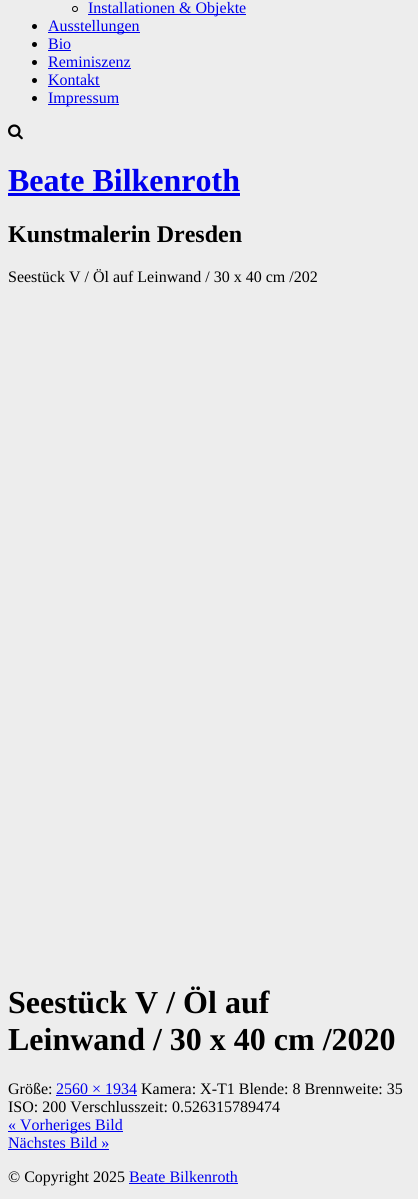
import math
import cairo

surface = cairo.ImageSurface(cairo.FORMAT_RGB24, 418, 1199)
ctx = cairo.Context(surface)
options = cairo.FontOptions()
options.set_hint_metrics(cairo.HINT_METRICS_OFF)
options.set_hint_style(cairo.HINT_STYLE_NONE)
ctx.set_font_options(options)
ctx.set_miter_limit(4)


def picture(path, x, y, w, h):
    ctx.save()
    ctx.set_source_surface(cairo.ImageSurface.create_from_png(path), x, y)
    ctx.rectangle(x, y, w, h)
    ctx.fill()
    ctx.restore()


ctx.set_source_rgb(0.929, 0.929, 0.929)
ctx.paint()
ctx.arc(75, 9, 2.5, 0, 2 * math.pi)
ctx.set_source_rgb(0, 0, 0)
ctx.set_line_width(1)
ctx.stroke()
ctx.set_source_rgb(0, 0, 0.933)
ctx.rectangle(88, 14, 158, 1)
ctx.fill()
ctx.select_font_face("Liberation Serif")
ctx.set_font_size(16)
ctx.move_to(88, 13)
ctx.show_text("Installationen & Objekte")
ctx.set_source_rgb(0, 0, 0)
ctx.new_path()
ctx.arc(34.5, 26.5, 2.5, 0, 2 * math.pi)
ctx.fill()
ctx.set_source_rgb(0, 0, 0.933)
ctx.rectangle(48, 32, 92, 1)
ctx.fill()
ctx.move_to(48, 31)
ctx.show_text("Ausstellungen")
ctx.set_source_rgb(0, 0, 0)
ctx.new_path()
ctx.arc(34.5, 44.5, 2.5, 0, 2 * math.pi)
ctx.fill()
ctx.set_source_rgb(0, 0, 0.933)
ctx.move_to(48, 49)
ctx.show_text("Bio")
ctx.rectangle(48, 50, 23, 1)
ctx.fill()
ctx.set_source_rgb(0, 0, 0)
ctx.arc(34.5, 62.5, 2.5, 0, 2 * math.pi)
ctx.fill()
ctx.set_source_rgb(0, 0, 0.933)
ctx.move_to(48, 67)
ctx.show_text("Reminiszenz")
ctx.rectangle(48, 68, 83, 1)
ctx.fill()
ctx.set_source_rgb(0, 0, 0)
ctx.arc(34.5, 80.5, 2.5, 0, 2 * math.pi)
ctx.fill()
ctx.set_source_rgb(0, 0, 0.933)
ctx.move_to(48, 85)
ctx.show_text("Kontakt")
ctx.rectangle(48, 86, 52, 1)
ctx.fill()
ctx.set_source_rgb(0, 0, 0)
ctx.arc(34.5, 98.5, 2.5, 0, 2 * math.pi)
ctx.fill()
ctx.set_source_rgb(0, 0, 0.933)
ctx.rectangle(48, 104, 71, 1)
ctx.fill()
ctx.move_to(48, 103)
ctx.show_text("Impressum")
picture("img1.png", 8, 124, 15, 16)
ctx.select_font_face("Liberation Serif", cairo.FONT_SLANT_NORMAL, cairo.FONT_WEIGHT_BOLD)
ctx.set_font_size(32)
ctx.move_to(8, 191)
ctx.show_text("Beate Bilkenroth")
ctx.rectangle(8, 193, 232, 3)
ctx.fill()
ctx.set_font_size(24)
ctx.set_source_rgb(0, 0, 0)
ctx.move_to(8, 242)
ctx.show_text("Kunstmalerin Dresden")
ctx.select_font_face("Liberation Serif")
ctx.set_font_size(16)
ctx.move_to(8, 282)
ctx.show_text("Seestück V / Öl auf Leinwand / 30 x 40 cm /202")
ctx.select_font_face("Liberation Serif", cairo.FONT_SLANT_NORMAL, cairo.FONT_WEIGHT_BOLD)
ctx.set_font_size(32)
ctx.move_to(8, 1013)
ctx.show_text("Seestück V / Öl auf")
ctx.move_to(8, 1050)
ctx.show_text("Leinwand / 30 x 40 cm /2020")
ctx.select_font_face("Liberation Serif")
ctx.set_font_size(16)
ctx.move_to(8, 1094)
ctx.show_text("Größe:")
ctx.set_source_rgb(0, 0, 0.933)
ctx.move_to(56, 1094)
ctx.show_text("2560 × 1934")
ctx.rectangle(56, 1095, 81, 1)
ctx.fill()
ctx.set_source_rgb(0, 0, 0)
ctx.move_to(141, 1094)
ctx.show_text("Kamera: X-T1 Blende: 8 Brennweite: 35")
ctx.move_to(8, 1112)
ctx.show_text("ISO: 200 Verschlusszeit: 0.526315789474")
ctx.set_source_rgb(0, 0, 0.933)
ctx.rectangle(8, 1131, 115, 1)
ctx.fill()
ctx.move_to(8, 1130)
ctx.show_text("« Vorheriges Bild")
ctx.move_to(8, 1148)
ctx.show_text("Nächstes Bild »")
ctx.rectangle(8, 1149, 101, 1)
ctx.fill()
ctx.set_source_rgb(0, 0, 0)
ctx.move_to(8, 1182)
ctx.show_text("© Copyright 2025")
ctx.set_source_rgb(0, 0, 0.933)
ctx.move_to(129, 1182)
ctx.show_text("Beate Bilkenroth")
ctx.rectangle(129, 1183, 109, 1)
ctx.fill()
surface.write_to_png("page.png")
